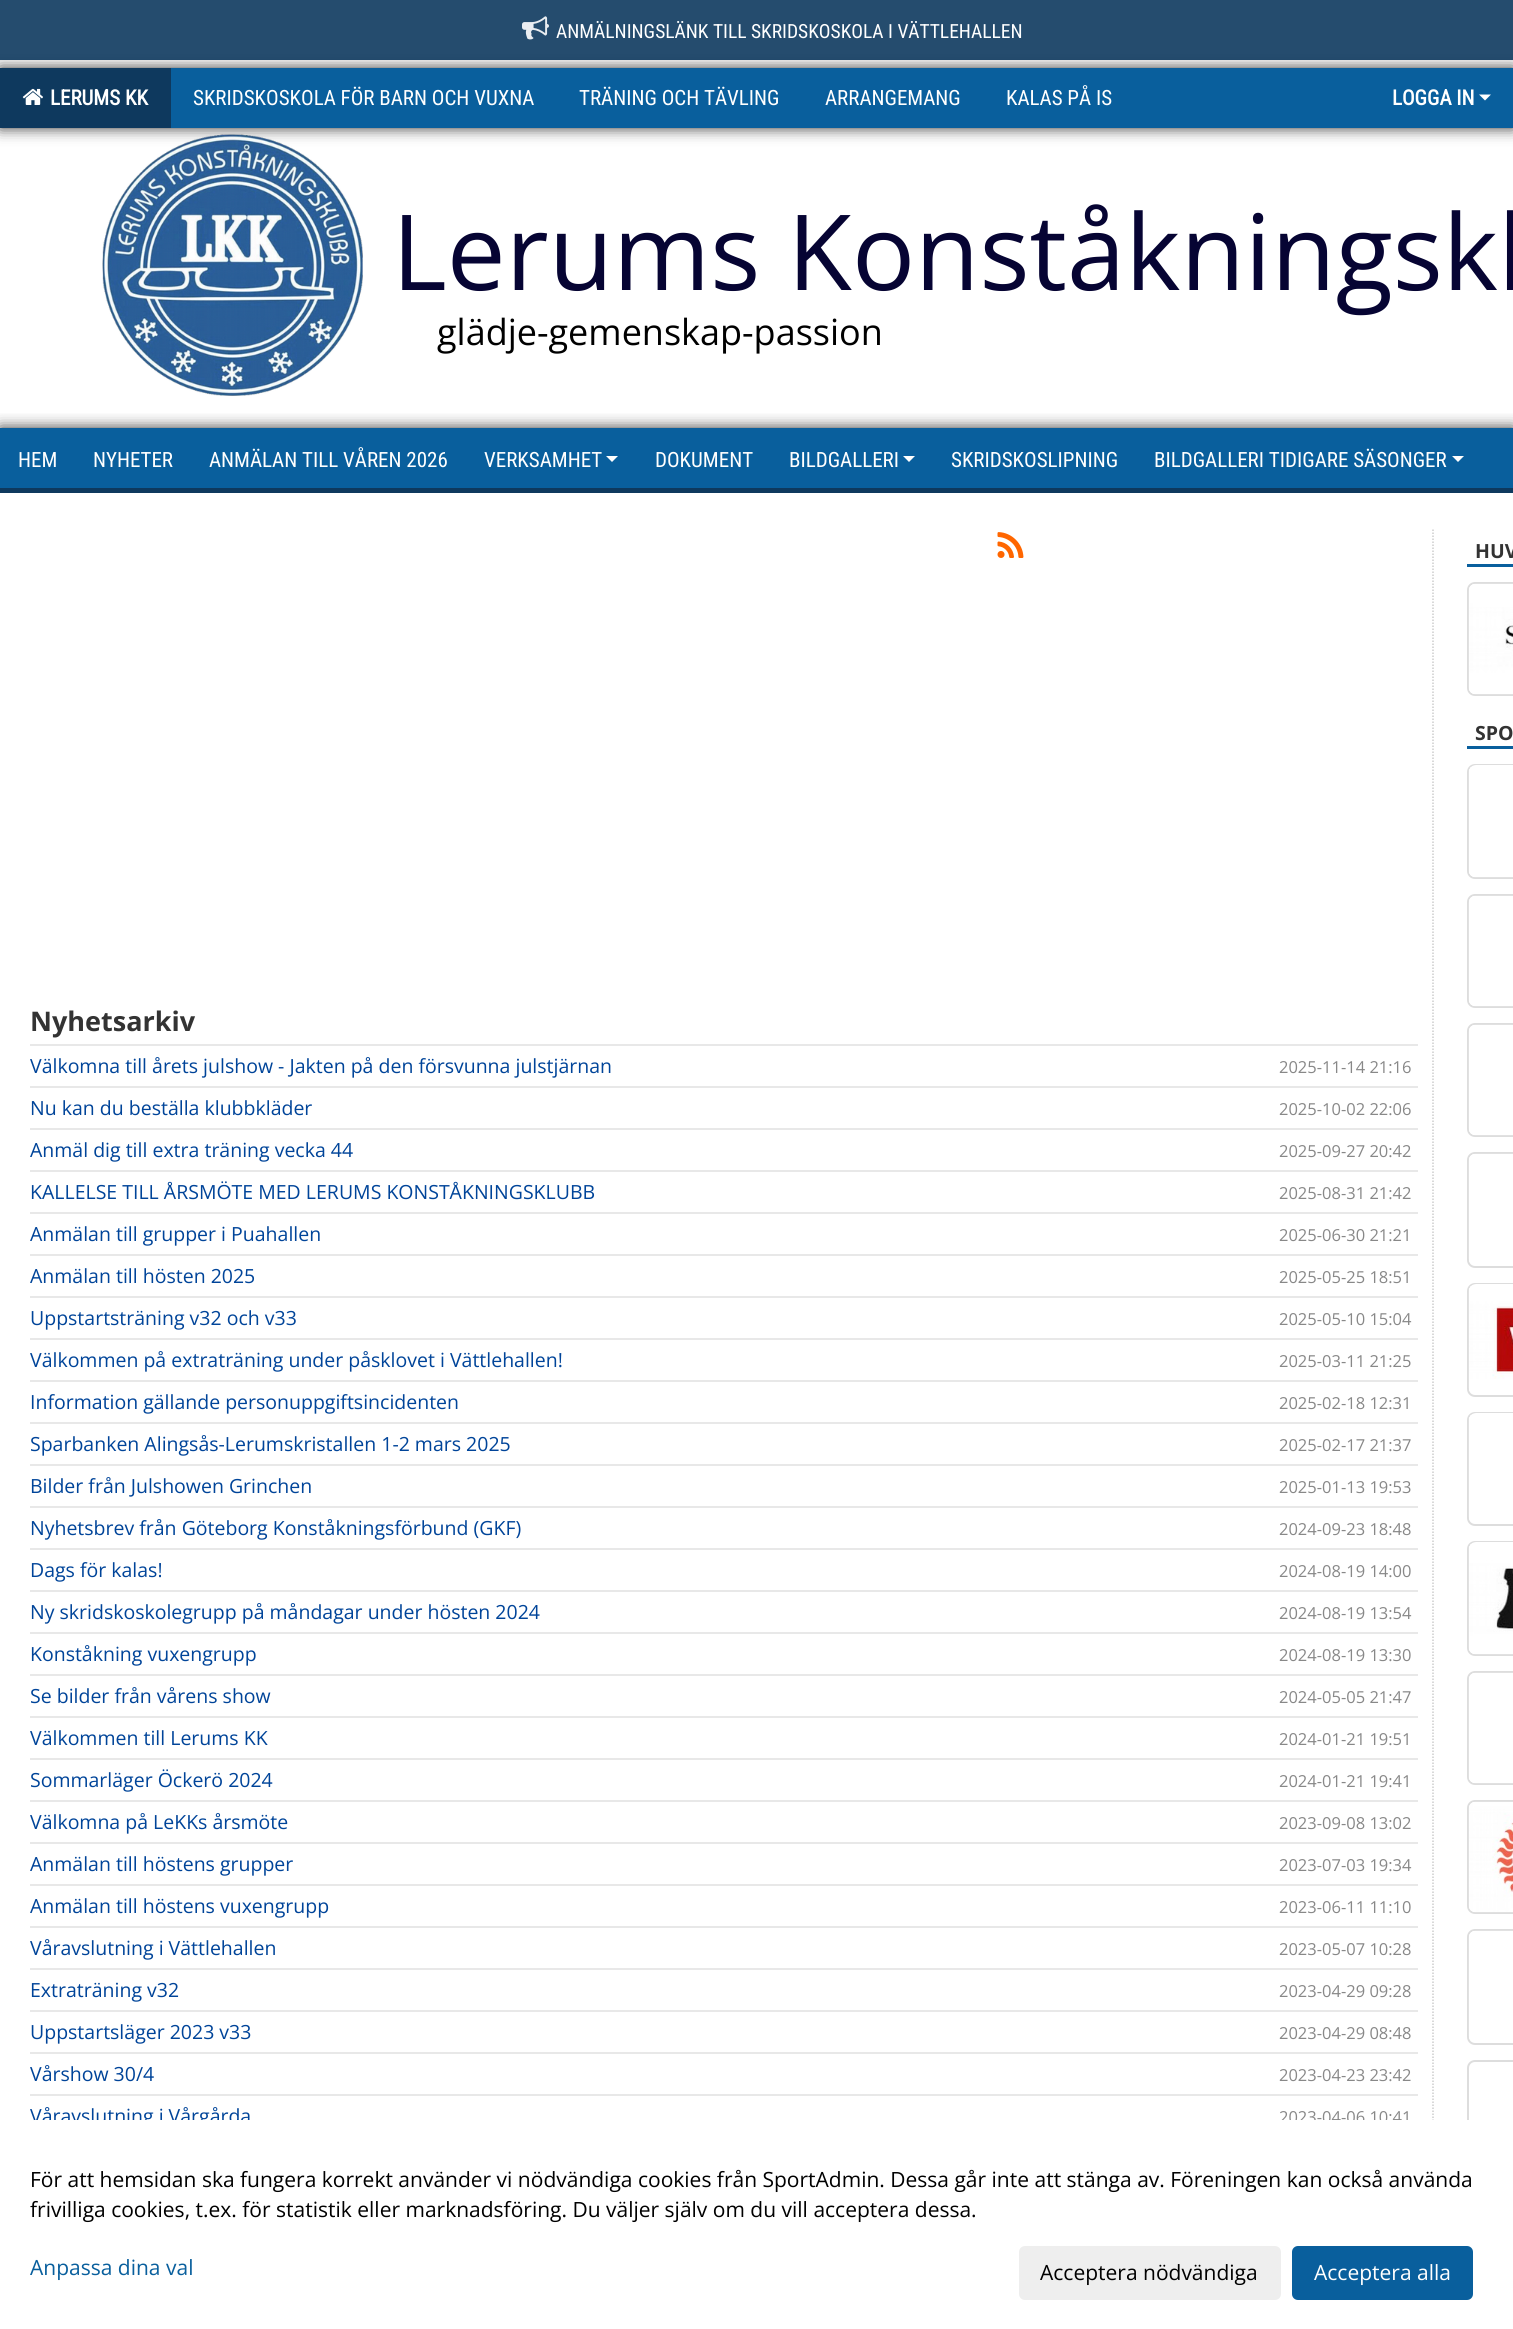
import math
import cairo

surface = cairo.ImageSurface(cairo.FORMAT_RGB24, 1513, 2329)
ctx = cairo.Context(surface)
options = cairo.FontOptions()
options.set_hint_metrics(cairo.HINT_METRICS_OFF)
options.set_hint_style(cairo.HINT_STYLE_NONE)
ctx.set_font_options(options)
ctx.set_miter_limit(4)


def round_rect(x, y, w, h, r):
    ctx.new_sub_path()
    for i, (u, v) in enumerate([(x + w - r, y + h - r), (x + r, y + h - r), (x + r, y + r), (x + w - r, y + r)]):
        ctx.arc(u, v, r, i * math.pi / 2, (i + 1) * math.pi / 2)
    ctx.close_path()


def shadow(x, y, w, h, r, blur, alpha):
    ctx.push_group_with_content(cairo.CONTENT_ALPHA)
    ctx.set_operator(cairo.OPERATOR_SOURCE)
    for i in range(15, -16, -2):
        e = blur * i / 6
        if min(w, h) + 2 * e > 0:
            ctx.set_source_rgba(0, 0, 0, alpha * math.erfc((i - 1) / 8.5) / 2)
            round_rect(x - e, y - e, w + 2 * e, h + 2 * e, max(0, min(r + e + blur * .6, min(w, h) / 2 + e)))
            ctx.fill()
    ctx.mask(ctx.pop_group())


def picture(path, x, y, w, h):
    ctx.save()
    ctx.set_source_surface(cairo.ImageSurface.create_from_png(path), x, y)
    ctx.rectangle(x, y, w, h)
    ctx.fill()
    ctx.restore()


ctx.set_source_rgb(1, 1, 1)
ctx.paint()
ctx.set_source_rgb(0.2, 0.2, 0.2)
shadow(0, 68, 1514, 60, 0, 7.5, 1)
ctx.set_source_rgba(0.055, 0.224, 0.369, 0.9)
ctx.rectangle(0, 0, 1513, 60)
ctx.fill()
picture("img1.png", 522, 16, 27, 24)
ctx.select_font_face("Roboto Condensed")
ctx.set_font_size(19.5)
ctx.set_source_rgb(1, 1, 1)
ctx.move_to(556, 38)
ctx.show_text("ANMÄLNINGSLÄNK TILL SKRIDSKOSKOLA I VÄTTLEHALLEN")
ctx.set_source_rgb(0.039, 0.373, 0.616)
ctx.rectangle(171, 68, 1342, 60)
ctx.fill()
ctx.set_source_rgb(0.055, 0.224, 0.369)
ctx.rectangle(0, 68, 171, 60)
ctx.fill()
picture("img2.png", 22, 88, 21, 17)
ctx.select_font_face("Roboto Condensed", cairo.FONT_SLANT_NORMAL, cairo.FONT_WEIGHT_BOLD)
ctx.set_font_size(21)
ctx.set_source_rgb(1, 1, 1)
ctx.move_to(50, 105)
ctx.show_text("LERUMS KK")
ctx.select_font_face("Roboto Condensed")
ctx.move_to(193, 105)
ctx.show_text("SKRIDSKOSKOLA FÖR BARN OCH VUXNA")
ctx.move_to(579, 105)
ctx.show_text("TRÄNING OCH TÄVLING")
ctx.move_to(825, 105)
ctx.show_text("ARRANGEMANG")
ctx.move_to(1006, 105)
ctx.show_text("KALAS PÅ IS")
ctx.select_font_face("Roboto Condensed", cairo.FONT_SLANT_NORMAL, cairo.FONT_WEIGHT_BOLD)
ctx.move_to(1392, 105)
ctx.show_text("LOGGA IN")
ctx.new_path()
ctx.move_to(1479, 94.5)
ctx.line_to(1491, 94.5)
ctx.line_to(1485, 100.5)
ctx.close_path()
ctx.fill()
picture("img3.png", 102, 134, 261, 262)
ctx.select_font_face("Open Sans")
ctx.set_font_size(105)
ctx.set_source_rgb(0.027, 0.016, 0.2)
ctx.move_to(392, 290)
ctx.show_text("Lerums Konståkningskl")
ctx.set_font_size(36)
ctx.set_source_rgb(0, 0, 0)
ctx.move_to(437, 345)
ctx.show_text("glädje-gemenskap-passion")
ctx.save()
ctx.rectangle(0, 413, 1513, 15)
ctx.clip()
ctx.set_source_rgb(0.2, 0.2, 0.2)
shadow(0, 428, 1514, 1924, 0, 7.5, 1)
ctx.restore()
ctx.set_source_rgb(0.039, 0.373, 0.616)
ctx.rectangle(0, 428, 1513, 60)
ctx.fill()
ctx.select_font_face("Roboto Condensed")
ctx.set_font_size(21)
ctx.set_source_rgb(1, 1, 1)
ctx.move_to(18, 467)
ctx.show_text("HEM")
ctx.move_to(93, 467)
ctx.show_text("NYHETER")
ctx.move_to(209, 467)
ctx.show_text("ANMÄLAN TILL VÅREN 2026")
ctx.move_to(484, 467)
ctx.show_text("VERKSAMHET")
ctx.new_path()
ctx.move_to(606, 456)
ctx.line_to(618, 456)
ctx.line_to(612, 462)
ctx.close_path()
ctx.fill()
ctx.move_to(655, 467)
ctx.show_text("DOKUMENT")
ctx.move_to(789, 467)
ctx.show_text("BILDGALLERI")
ctx.new_path()
ctx.move_to(903, 456)
ctx.line_to(915, 456)
ctx.line_to(909, 462)
ctx.close_path()
ctx.fill()
ctx.move_to(951, 467)
ctx.show_text("SKRIDSKOSLIPNING")
ctx.move_to(1154, 467)
ctx.show_text("BILDGALLERI TIDIGARE SÄSONGER")
ctx.new_path()
ctx.move_to(1452, 456)
ctx.line_to(1464, 456)
ctx.line_to(1458, 462)
ctx.close_path()
ctx.fill()
ctx.set_source_rgb(0.055, 0.224, 0.369)
ctx.rectangle(0, 488, 1513, 5)
ctx.fill()
ctx.new_path()
ctx.move_to(1433, 529.5)
ctx.line_to(1433, 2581.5)
ctx.set_source_rgb(0.8, 0.8, 0.8)
ctx.set_line_width(1.5)
ctx.set_dash([1.5, 1.5])
ctx.stroke()
ctx.set_source_rgb(0.039, 0.373, 0.616)
ctx.rectangle(1467, 564, 46, 3)
ctx.fill()
ctx.select_font_face("Open Sans", cairo.FONT_SLANT_NORMAL, cairo.FONT_WEIGHT_BOLD)
ctx.set_font_size(19.5)
ctx.set_source_rgb(0.2, 0.2, 0.2)
ctx.move_to(1475, 558)
ctx.show_text("HUV")
round_rect(1468, 583, 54, 112, 7)
ctx.set_source_rgb(0.867, 0.867, 0.867)
ctx.set_line_width(2)
ctx.set_dash([])
ctx.stroke()
picture("img4.png", 1468, 583, 45, 112)
ctx.set_source_rgb(0.039, 0.373, 0.616)
ctx.rectangle(1467, 746, 46, 3)
ctx.fill()
ctx.set_source_rgb(0.2, 0.2, 0.2)
ctx.move_to(1475, 740)
ctx.show_text("SPO")
round_rect(1468, 765, 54, 113, 7)
ctx.set_source_rgb(0.867, 0.867, 0.867)
ctx.stroke()
picture("img5.png", 1468, 765, 45, 113)
round_rect(1468, 895, 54, 112, 7)
ctx.stroke()
picture("img6.png", 1468, 895, 45, 112)
round_rect(1468, 1024, 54, 112, 7)
ctx.stroke()
picture("img6.png", 1468, 1024, 45, 112)
round_rect(1468, 1153, 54, 114, 7)
ctx.stroke()
picture("img7.png", 1468, 1153, 45, 109)
round_rect(1468, 1284, 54, 112, 7)
ctx.stroke()
picture("img8.png", 1468, 1284, 45, 107)
round_rect(1468, 1413, 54, 112, 7)
ctx.stroke()
picture("img9.png", 1468, 1413, 45, 107)
round_rect(1468, 1542, 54, 113, 7)
ctx.stroke()
picture("img10.png", 1468, 1542, 45, 113)
round_rect(1468, 1672, 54, 112, 7)
ctx.stroke()
picture("img11.png", 1468, 1672, 45, 112)
round_rect(1468, 1801, 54, 112, 7)
ctx.stroke()
picture("img12.png", 1468, 1801, 45, 112)
round_rect(1468, 1930, 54, 114, 7)
ctx.stroke()
picture("img7.png", 1468, 1930, 45, 109)
round_rect(1468, 2061, 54, 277, 7)
ctx.stroke()
picture("img13.png", 997, 532, 27, 26)
ctx.set_font_size(27)
ctx.set_source_rgb(0.2, 0.2, 0.2)
ctx.move_to(30, 1031)
ctx.show_text("Nyhetsarkiv")
ctx.set_source_rgb(0.91, 0.91, 0.91)
ctx.rectangle(30, 1044, 1388, 2)
ctx.fill()
ctx.select_font_face("Open Sans")
ctx.set_font_size(19.5)
ctx.set_source_rgb(0, 0.267, 0.6)
ctx.move_to(30, 1073)
ctx.show_text("Välkomna till årets julshow - Jakten på den försvunna julstjärnan")
ctx.set_font_size(16.5)
ctx.set_source_rgb(0.533, 0.533, 0.533)
ctx.move_to(1279, 1073)
ctx.show_text("2025-11-14 21:16")
ctx.set_source_rgb(0.91, 0.91, 0.91)
ctx.rectangle(30, 1086, 1388, 2)
ctx.fill()
ctx.set_font_size(19.5)
ctx.set_source_rgb(0, 0.267, 0.6)
ctx.move_to(30, 1115)
ctx.show_text("Nu kan du beställa klubbkläder")
ctx.set_font_size(16.5)
ctx.set_source_rgb(0.533, 0.533, 0.533)
ctx.move_to(1279, 1115)
ctx.show_text("2025-10-02 22:06")
ctx.set_source_rgb(0.91, 0.91, 0.91)
ctx.rectangle(30, 1128, 1388, 2)
ctx.fill()
ctx.set_font_size(19.5)
ctx.set_source_rgb(0, 0.267, 0.6)
ctx.move_to(30, 1157)
ctx.show_text("Anmäl dig till extra träning vecka 44")
ctx.set_font_size(16.5)
ctx.set_source_rgb(0.533, 0.533, 0.533)
ctx.move_to(1279, 1157)
ctx.show_text("2025-09-27 20:42")
ctx.set_source_rgb(0.91, 0.91, 0.91)
ctx.rectangle(30, 1170, 1388, 2)
ctx.fill()
ctx.set_font_size(19.5)
ctx.set_source_rgb(0, 0.267, 0.6)
ctx.move_to(30, 1199)
ctx.show_text("KALLELSE TILL ÅRSMÖTE MED LERUMS KONSTÅKNINGSKLUBB")
ctx.set_font_size(16.5)
ctx.set_source_rgb(0.533, 0.533, 0.533)
ctx.move_to(1279, 1199)
ctx.show_text("2025-08-31 21:42")
ctx.set_source_rgb(0.91, 0.91, 0.91)
ctx.rectangle(30, 1212, 1388, 2)
ctx.fill()
ctx.set_font_size(19.5)
ctx.set_source_rgb(0, 0.267, 0.6)
ctx.move_to(30, 1241)
ctx.show_text("Anmälan till grupper i Puahallen")
ctx.set_font_size(16.5)
ctx.set_source_rgb(0.533, 0.533, 0.533)
ctx.move_to(1279, 1241)
ctx.show_text("2025-06-30 21:21")
ctx.set_source_rgb(0.91, 0.91, 0.91)
ctx.rectangle(30, 1254, 1388, 2)
ctx.fill()
ctx.set_font_size(19.5)
ctx.set_source_rgb(0, 0.267, 0.6)
ctx.move_to(30, 1283)
ctx.show_text("Anmälan till hösten 2025")
ctx.set_font_size(16.5)
ctx.set_source_rgb(0.533, 0.533, 0.533)
ctx.move_to(1279, 1283)
ctx.show_text("2025-05-25 18:51")
ctx.set_source_rgb(0.91, 0.91, 0.91)
ctx.rectangle(30, 1296, 1388, 2)
ctx.fill()
ctx.set_font_size(19.5)
ctx.set_source_rgb(0, 0.267, 0.6)
ctx.move_to(30, 1325)
ctx.show_text("Uppstartsträning v32 och v33")
ctx.set_font_size(16.5)
ctx.set_source_rgb(0.533, 0.533, 0.533)
ctx.move_to(1279, 1325)
ctx.show_text("2025-05-10 15:04")
ctx.set_source_rgb(0.91, 0.91, 0.91)
ctx.rectangle(30, 1338, 1388, 2)
ctx.fill()
ctx.set_font_size(19.5)
ctx.set_source_rgb(0, 0.267, 0.6)
ctx.move_to(30, 1367)
ctx.show_text("Välkommen på extraträning under påsklovet i Vättlehallen!")
ctx.set_font_size(16.5)
ctx.set_source_rgb(0.533, 0.533, 0.533)
ctx.move_to(1279, 1367)
ctx.show_text("2025-03-11 21:25")
ctx.set_source_rgb(0.91, 0.91, 0.91)
ctx.rectangle(30, 1380, 1388, 2)
ctx.fill()
ctx.set_font_size(19.5)
ctx.set_source_rgb(0, 0.267, 0.6)
ctx.move_to(30, 1409)
ctx.show_text("Information gällande personuppgiftsincidenten")
ctx.set_font_size(16.5)
ctx.set_source_rgb(0.533, 0.533, 0.533)
ctx.move_to(1279, 1409)
ctx.show_text("2025-02-18 12:31")
ctx.set_source_rgb(0.91, 0.91, 0.91)
ctx.rectangle(30, 1422, 1388, 2)
ctx.fill()
ctx.set_font_size(19.5)
ctx.set_source_rgb(0, 0.267, 0.6)
ctx.move_to(30, 1451)
ctx.show_text("Sparbanken Alingsås-Lerumskristallen 1-2 mars 2025")
ctx.set_font_size(16.5)
ctx.set_source_rgb(0.533, 0.533, 0.533)
ctx.move_to(1279, 1451)
ctx.show_text("2025-02-17 21:37")
ctx.set_source_rgb(0.91, 0.91, 0.91)
ctx.rectangle(30, 1464, 1388, 2)
ctx.fill()
ctx.set_font_size(19.5)
ctx.set_source_rgb(0, 0.267, 0.6)
ctx.move_to(30, 1493)
ctx.show_text("Bilder från Julshowen Grinchen")
ctx.set_font_size(16.5)
ctx.set_source_rgb(0.533, 0.533, 0.533)
ctx.move_to(1279, 1493)
ctx.show_text("2025-01-13 19:53")
ctx.set_source_rgb(0.91, 0.91, 0.91)
ctx.rectangle(30, 1506, 1388, 2)
ctx.fill()
ctx.set_font_size(19.5)
ctx.set_source_rgb(0, 0.267, 0.6)
ctx.move_to(30, 1535)
ctx.show_text("Nyhetsbrev från Göteborg Konståkningsförbund (GKF)")
ctx.set_font_size(16.5)
ctx.set_source_rgb(0.533, 0.533, 0.533)
ctx.move_to(1279, 1535)
ctx.show_text("2024-09-23 18:48")
ctx.set_source_rgb(0.91, 0.91, 0.91)
ctx.rectangle(30, 1548, 1388, 2)
ctx.fill()
ctx.set_font_size(19.5)
ctx.set_source_rgb(0, 0.267, 0.6)
ctx.move_to(30, 1577)
ctx.show_text("Dags för kalas!")
ctx.set_font_size(16.5)
ctx.set_source_rgb(0.533, 0.533, 0.533)
ctx.move_to(1279, 1577)
ctx.show_text("2024-08-19 14:00")
ctx.set_source_rgb(0.91, 0.91, 0.91)
ctx.rectangle(30, 1590, 1388, 2)
ctx.fill()
ctx.set_font_size(19.5)
ctx.set_source_rgb(0, 0.267, 0.6)
ctx.move_to(30, 1619)
ctx.show_text("Ny skridskoskolegrupp på måndagar under hösten 2024")
ctx.set_font_size(16.5)
ctx.set_source_rgb(0.533, 0.533, 0.533)
ctx.move_to(1279, 1619)
ctx.show_text("2024-08-19 13:54")
ctx.set_source_rgb(0.91, 0.91, 0.91)
ctx.rectangle(30, 1632, 1388, 2)
ctx.fill()
ctx.set_font_size(19.5)
ctx.set_source_rgb(0, 0.267, 0.6)
ctx.move_to(30, 1661)
ctx.show_text("Konståkning vuxengrupp")
ctx.set_font_size(16.5)
ctx.set_source_rgb(0.533, 0.533, 0.533)
ctx.move_to(1279, 1661)
ctx.show_text("2024-08-19 13:30")
ctx.set_source_rgb(0.91, 0.91, 0.91)
ctx.rectangle(30, 1674, 1388, 2)
ctx.fill()
ctx.set_font_size(19.5)
ctx.set_source_rgb(0, 0.267, 0.6)
ctx.move_to(30, 1703)
ctx.show_text("Se bilder från vårens show")
ctx.set_font_size(16.5)
ctx.set_source_rgb(0.533, 0.533, 0.533)
ctx.move_to(1279, 1703)
ctx.show_text("2024-05-05 21:47")
ctx.set_source_rgb(0.91, 0.91, 0.91)
ctx.rectangle(30, 1716, 1388, 2)
ctx.fill()
ctx.set_font_size(19.5)
ctx.set_source_rgb(0, 0.267, 0.6)
ctx.move_to(30, 1745)
ctx.show_text("Välkommen till Lerums KK")
ctx.set_font_size(16.5)
ctx.set_source_rgb(0.533, 0.533, 0.533)
ctx.move_to(1279, 1745)
ctx.show_text("2024-01-21 19:51")
ctx.set_source_rgb(0.91, 0.91, 0.91)
ctx.rectangle(30, 1758, 1388, 2)
ctx.fill()
ctx.set_font_size(19.5)
ctx.set_source_rgb(0, 0.267, 0.6)
ctx.move_to(30, 1787)
ctx.show_text("Sommarläger Öckerö 2024")
ctx.set_font_size(16.5)
ctx.set_source_rgb(0.533, 0.533, 0.533)
ctx.move_to(1279, 1787)
ctx.show_text("2024-01-21 19:41")
ctx.set_source_rgb(0.91, 0.91, 0.91)
ctx.rectangle(30, 1800, 1388, 2)
ctx.fill()
ctx.set_font_size(19.5)
ctx.set_source_rgb(0, 0.267, 0.6)
ctx.move_to(30, 1829)
ctx.show_text("Välkomna på LeKKs årsmöte")
ctx.set_font_size(16.5)
ctx.set_source_rgb(0.533, 0.533, 0.533)
ctx.move_to(1279, 1829)
ctx.show_text("2023-09-08 13:02")
ctx.set_source_rgb(0.91, 0.91, 0.91)
ctx.rectangle(30, 1842, 1388, 2)
ctx.fill()
ctx.set_font_size(19.5)
ctx.set_source_rgb(0, 0.267, 0.6)
ctx.move_to(30, 1871)
ctx.show_text("Anmälan till höstens grupper")
ctx.set_font_size(16.5)
ctx.set_source_rgb(0.533, 0.533, 0.533)
ctx.move_to(1279, 1871)
ctx.show_text("2023-07-03 19:34")
ctx.set_source_rgb(0.91, 0.91, 0.91)
ctx.rectangle(30, 1884, 1388, 2)
ctx.fill()
ctx.set_font_size(19.5)
ctx.set_source_rgb(0, 0.267, 0.6)
ctx.move_to(30, 1913)
ctx.show_text("Anmälan till höstens vuxengrupp")
ctx.set_font_size(16.5)
ctx.set_source_rgb(0.533, 0.533, 0.533)
ctx.move_to(1279, 1913)
ctx.show_text("2023-06-11 11:10")
ctx.set_source_rgb(0.91, 0.91, 0.91)
ctx.rectangle(30, 1926, 1388, 2)
ctx.fill()
ctx.set_font_size(19.5)
ctx.set_source_rgb(0, 0.267, 0.6)
ctx.move_to(30, 1955)
ctx.show_text("Våravslutning i Vättlehallen")
ctx.set_font_size(16.5)
ctx.set_source_rgb(0.533, 0.533, 0.533)
ctx.move_to(1279, 1955)
ctx.show_text("2023-05-07 10:28")
ctx.set_source_rgb(0.91, 0.91, 0.91)
ctx.rectangle(30, 1968, 1388, 2)
ctx.fill()
ctx.set_font_size(19.5)
ctx.set_source_rgb(0, 0.267, 0.6)
ctx.move_to(30, 1997)
ctx.show_text("Extraträning v32")
ctx.set_font_size(16.5)
ctx.set_source_rgb(0.533, 0.533, 0.533)
ctx.move_to(1279, 1997)
ctx.show_text("2023-04-29 09:28")
ctx.set_source_rgb(0.91, 0.91, 0.91)
ctx.rectangle(30, 2010, 1388, 2)
ctx.fill()
ctx.set_font_size(19.5)
ctx.set_source_rgb(0, 0.267, 0.6)
ctx.move_to(30, 2039)
ctx.show_text("Uppstartsläger 2023 v33")
ctx.set_font_size(16.5)
ctx.set_source_rgb(0.533, 0.533, 0.533)
ctx.move_to(1279, 2039)
ctx.show_text("2023-04-29 08:48")
ctx.set_source_rgb(0.91, 0.91, 0.91)
ctx.rectangle(30, 2052, 1388, 2)
ctx.fill()
ctx.set_font_size(19.5)
ctx.set_source_rgb(0, 0.267, 0.6)
ctx.move_to(30, 2081)
ctx.show_text("Vårshow 30/4")
ctx.set_font_size(16.5)
ctx.set_source_rgb(0.533, 0.533, 0.533)
ctx.move_to(1279, 2081)
ctx.show_text("2023-04-23 23:42")
ctx.set_source_rgb(0.91, 0.91, 0.91)
ctx.rectangle(30, 2094, 1388, 2)
ctx.fill()
ctx.set_font_size(19.5)
ctx.set_source_rgb(0, 0.267, 0.6)
ctx.move_to(30, 2123)
ctx.show_text("Våravslutning i Vårgårda")
ctx.set_font_size(16.5)
ctx.set_source_rgb(0.533, 0.533, 0.533)
ctx.move_to(1279, 2123)
ctx.show_text("2023-04-06 10:41")
ctx.set_source_rgb(1, 1, 1)
ctx.rectangle(34, 2120, 1435, 209)
ctx.fill()
ctx.set_font_size(21)
ctx.set_source_rgb(0, 0, 0)
ctx.move_to(30, 2187)
ctx.show_text("För att hemsidan ska fungera korrekt använder vi nödvändiga cookies från SportAdmin. Dessa går inte att stänga av. Föreningen kan också använda")
ctx.move_to(30, 2217)
ctx.show_text("frivilliga cookies, t.ex. för statistik eller marknadsföring. Du väljer själv om du vill acceptera dessa.")
ctx.set_source_rgb(0.039, 0.373, 0.616)
ctx.move_to(30, 2275)
ctx.show_text("Anpassa dina val")
ctx.set_source_rgb(0.933, 0.933, 0.933)
round_rect(1019, 2246, 262, 54, 6)
ctx.fill()
ctx.set_source_rgb(0, 0, 0)
ctx.move_to(1040, 2280)
ctx.show_text("Acceptera nödvändiga")
ctx.set_source_rgb(0.039, 0.373, 0.616)
round_rect(1292, 2246, 181, 54, 6)
ctx.fill()
ctx.set_source_rgb(1, 1, 1)
ctx.move_to(1314, 2280)
ctx.show_text("Acceptera alla")
surface.write_to_png("page.png")
